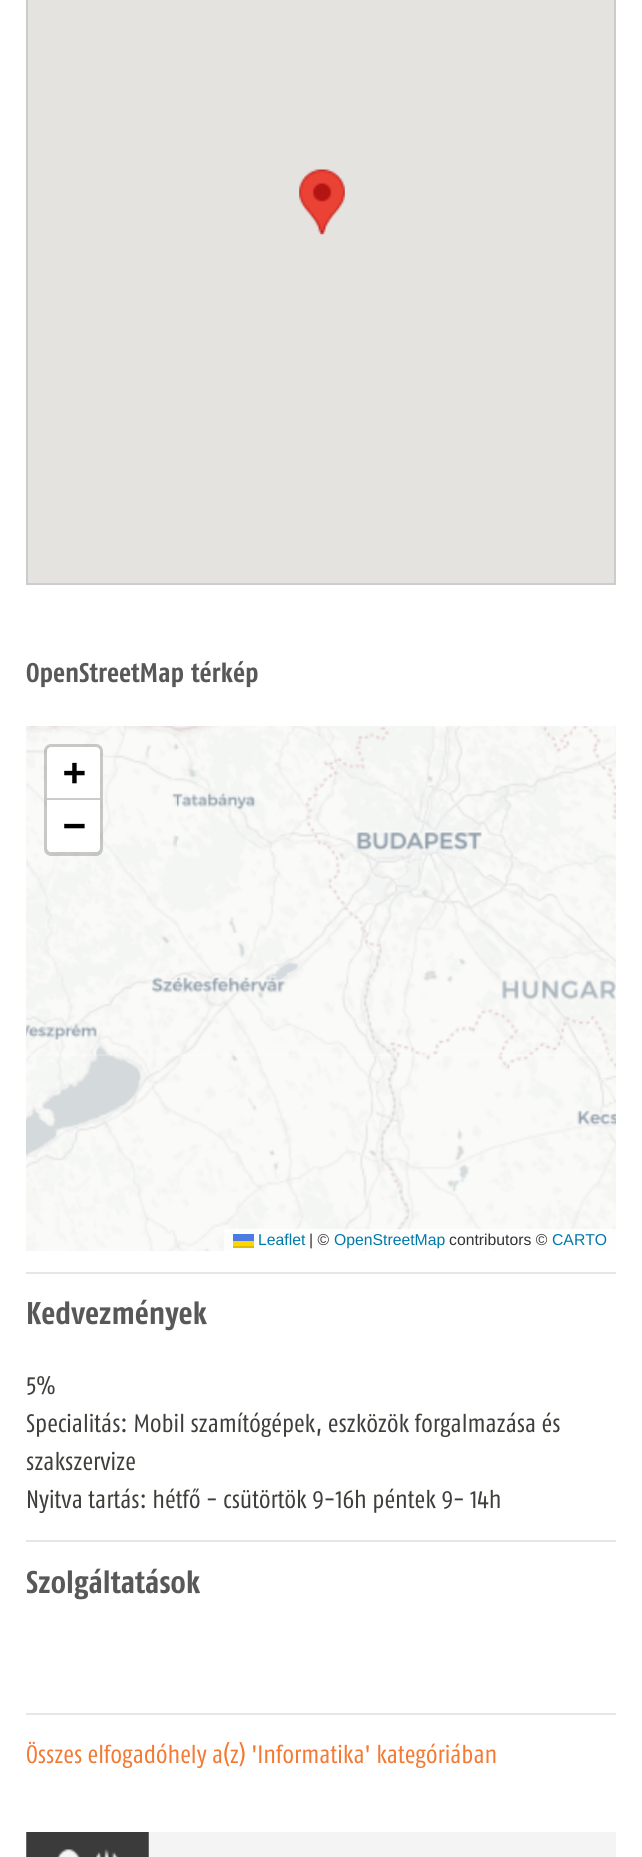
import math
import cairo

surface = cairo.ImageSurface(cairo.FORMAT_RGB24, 642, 1857)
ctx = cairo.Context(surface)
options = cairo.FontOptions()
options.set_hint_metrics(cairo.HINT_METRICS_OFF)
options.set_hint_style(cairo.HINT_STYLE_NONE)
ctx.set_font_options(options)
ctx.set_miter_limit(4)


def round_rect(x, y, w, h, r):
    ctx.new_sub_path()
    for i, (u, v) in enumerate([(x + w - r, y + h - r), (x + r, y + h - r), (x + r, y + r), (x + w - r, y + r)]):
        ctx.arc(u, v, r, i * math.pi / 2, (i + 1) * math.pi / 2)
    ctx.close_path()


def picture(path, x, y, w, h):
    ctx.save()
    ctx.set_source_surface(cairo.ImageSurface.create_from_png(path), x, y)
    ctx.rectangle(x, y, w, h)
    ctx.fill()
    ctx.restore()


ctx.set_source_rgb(1, 1, 1)
ctx.paint()
ctx.rectangle(27, -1, 588, 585)
ctx.set_source_rgb(0.8, 0.8, 0.8)
ctx.stroke()
ctx.set_source_rgb(0.898, 0.89, 0.875)
ctx.rectangle(28, 0, 586, 583)
ctx.fill()
picture("img1.png", 299, 169, 46, 66)
ctx.select_font_face("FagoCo", cairo.FONT_SLANT_NORMAL, cairo.FONT_WEIGHT_BOLD)
ctx.set_font_size(27.5)
ctx.set_source_rgb(0.345, 0.345, 0.345)
ctx.move_to(26, 682)
ctx.show_text("OpenStreetMap térkép")
picture("img2.png", 26, 726, 151, 329)
picture("img3.png", 177, 726, 439, 329)
picture("img4.png", 26, 1055, 151, 196)
picture("img5.png", 177, 1054, 439, 197)
round_rect(46, 746, 55, 108, 5)
ctx.set_source_rgba(0, 0, 0, 0.2)
ctx.set_line_width(4)
ctx.stroke()
ctx.set_source_rgb(1, 1, 1)
ctx.new_path()
ctx.move_to(51, 747)
ctx.line_to(96, 747)
ctx.curve_to(98, 747, 100, 749, 100, 751)
ctx.line_to(100, 800)
ctx.line_to(47, 800)
ctx.line_to(47, 751)
ctx.curve_to(47, 749, 49, 747, 51, 747)
ctx.close_path()
ctx.fill()
ctx.set_source_rgb(0.8, 0.8, 0.8)
ctx.rectangle(47, 798, 53, 2)
ctx.fill()
ctx.select_font_face("DejaVu Sans Mono", cairo.FONT_SLANT_NORMAL, cairo.FONT_WEIGHT_BOLD)
ctx.set_font_size(38)
ctx.set_source_rgb(0, 0, 0)
ctx.move_to(63, 785)
ctx.show_text("+")
ctx.set_source_rgb(1, 1, 1)
ctx.new_path()
ctx.move_to(47, 800)
ctx.line_to(100, 800)
ctx.line_to(100, 848)
ctx.curve_to(100, 850, 98, 852, 96, 852)
ctx.line_to(51, 852)
ctx.curve_to(49, 852, 47, 850, 47, 848)
ctx.close_path()
ctx.fill()
ctx.set_source_rgb(0, 0, 0)
ctx.move_to(63, 838)
ctx.show_text("−")
ctx.set_source_rgba(1, 1, 1, 0.8)
ctx.rectangle(224, 1229, 392, 22)
ctx.fill()
ctx.select_font_face("Liberation Sans")
ctx.set_font_size(15.75)
ctx.set_source_rgb(0, 0.471, 0.659)
ctx.move_to(258, 1245)
ctx.show_text("Leaflet")
ctx.set_source_rgb(0.298, 0.482, 0.882)
ctx.rectangle(233, 1234, 21, 7)
ctx.fill()
ctx.set_source_rgb(1, 0.835, 0)
ctx.rectangle(233, 1241, 21, 5)
ctx.fill()
ctx.set_source_rgb(0.878, 0.737, 0)
ctx.rectangle(233, 1246, 21, 2)
ctx.fill()
ctx.set_source_rgb(0.2, 0.2, 0.2)
ctx.move_to(309, 1245)
ctx.show_text("| ©")
ctx.set_source_rgb(0, 0.471, 0.659)
ctx.move_to(334, 1245)
ctx.show_text("OpenStreetMap")
ctx.set_source_rgb(0.2, 0.2, 0.2)
ctx.move_to(449, 1245)
ctx.show_text("contributors ©")
ctx.set_source_rgb(0, 0.471, 0.659)
ctx.move_to(552, 1245)
ctx.show_text("CARTO")
ctx.set_source_rgb(0.902, 0.902, 0.902)
ctx.rectangle(26, 1272, 590, 2)
ctx.fill()
ctx.select_font_face("FagoCo", cairo.FONT_SLANT_NORMAL, cairo.FONT_WEIGHT_BOLD)
ctx.set_font_size(32)
ctx.set_source_rgb(0.345, 0.345, 0.345)
ctx.move_to(26, 1324)
ctx.show_text("Kedvezmények")
ctx.select_font_face("FagoCo")
ctx.set_font_size(25.2)
ctx.set_source_rgb(0.243, 0.247, 0.227)
ctx.move_to(26, 1394)
ctx.show_text("5%")
ctx.move_to(26, 1432)
ctx.show_text("Specialitás: Mobil szamítógépek, eszközök forgalmazása és")
ctx.move_to(26, 1470)
ctx.show_text("szakszervize")
ctx.move_to(26, 1508)
ctx.show_text("Nyitva tartás: hétfő - csütörtök 9-16h péntek 9- 14h")
ctx.set_source_rgb(0.902, 0.902, 0.902)
ctx.rectangle(26, 1540, 590, 2)
ctx.fill()
ctx.select_font_face("FagoCo", cairo.FONT_SLANT_NORMAL, cairo.FONT_WEIGHT_BOLD)
ctx.set_font_size(32)
ctx.set_source_rgb(0.345, 0.345, 0.345)
ctx.move_to(26, 1593)
ctx.show_text("Szolgáltatások")
ctx.set_source_rgb(0.902, 0.902, 0.902)
ctx.rectangle(26, 1713, 590, 2)
ctx.fill()
ctx.select_font_face("FagoCo")
ctx.set_font_size(25.2)
ctx.set_source_rgb(0.957, 0.475, 0.2)
ctx.move_to(26, 1763)
ctx.show_text("Összes elfogadóhely a(z) 'Informatika' kategóriában")
ctx.set_source_rgb(0.957, 0.957, 0.957)
ctx.rectangle(26, 1832, 590, 25)
ctx.fill()
picture("img6.png", 26, 1832, 123, 25)
surface.write_to_png("page.png")
